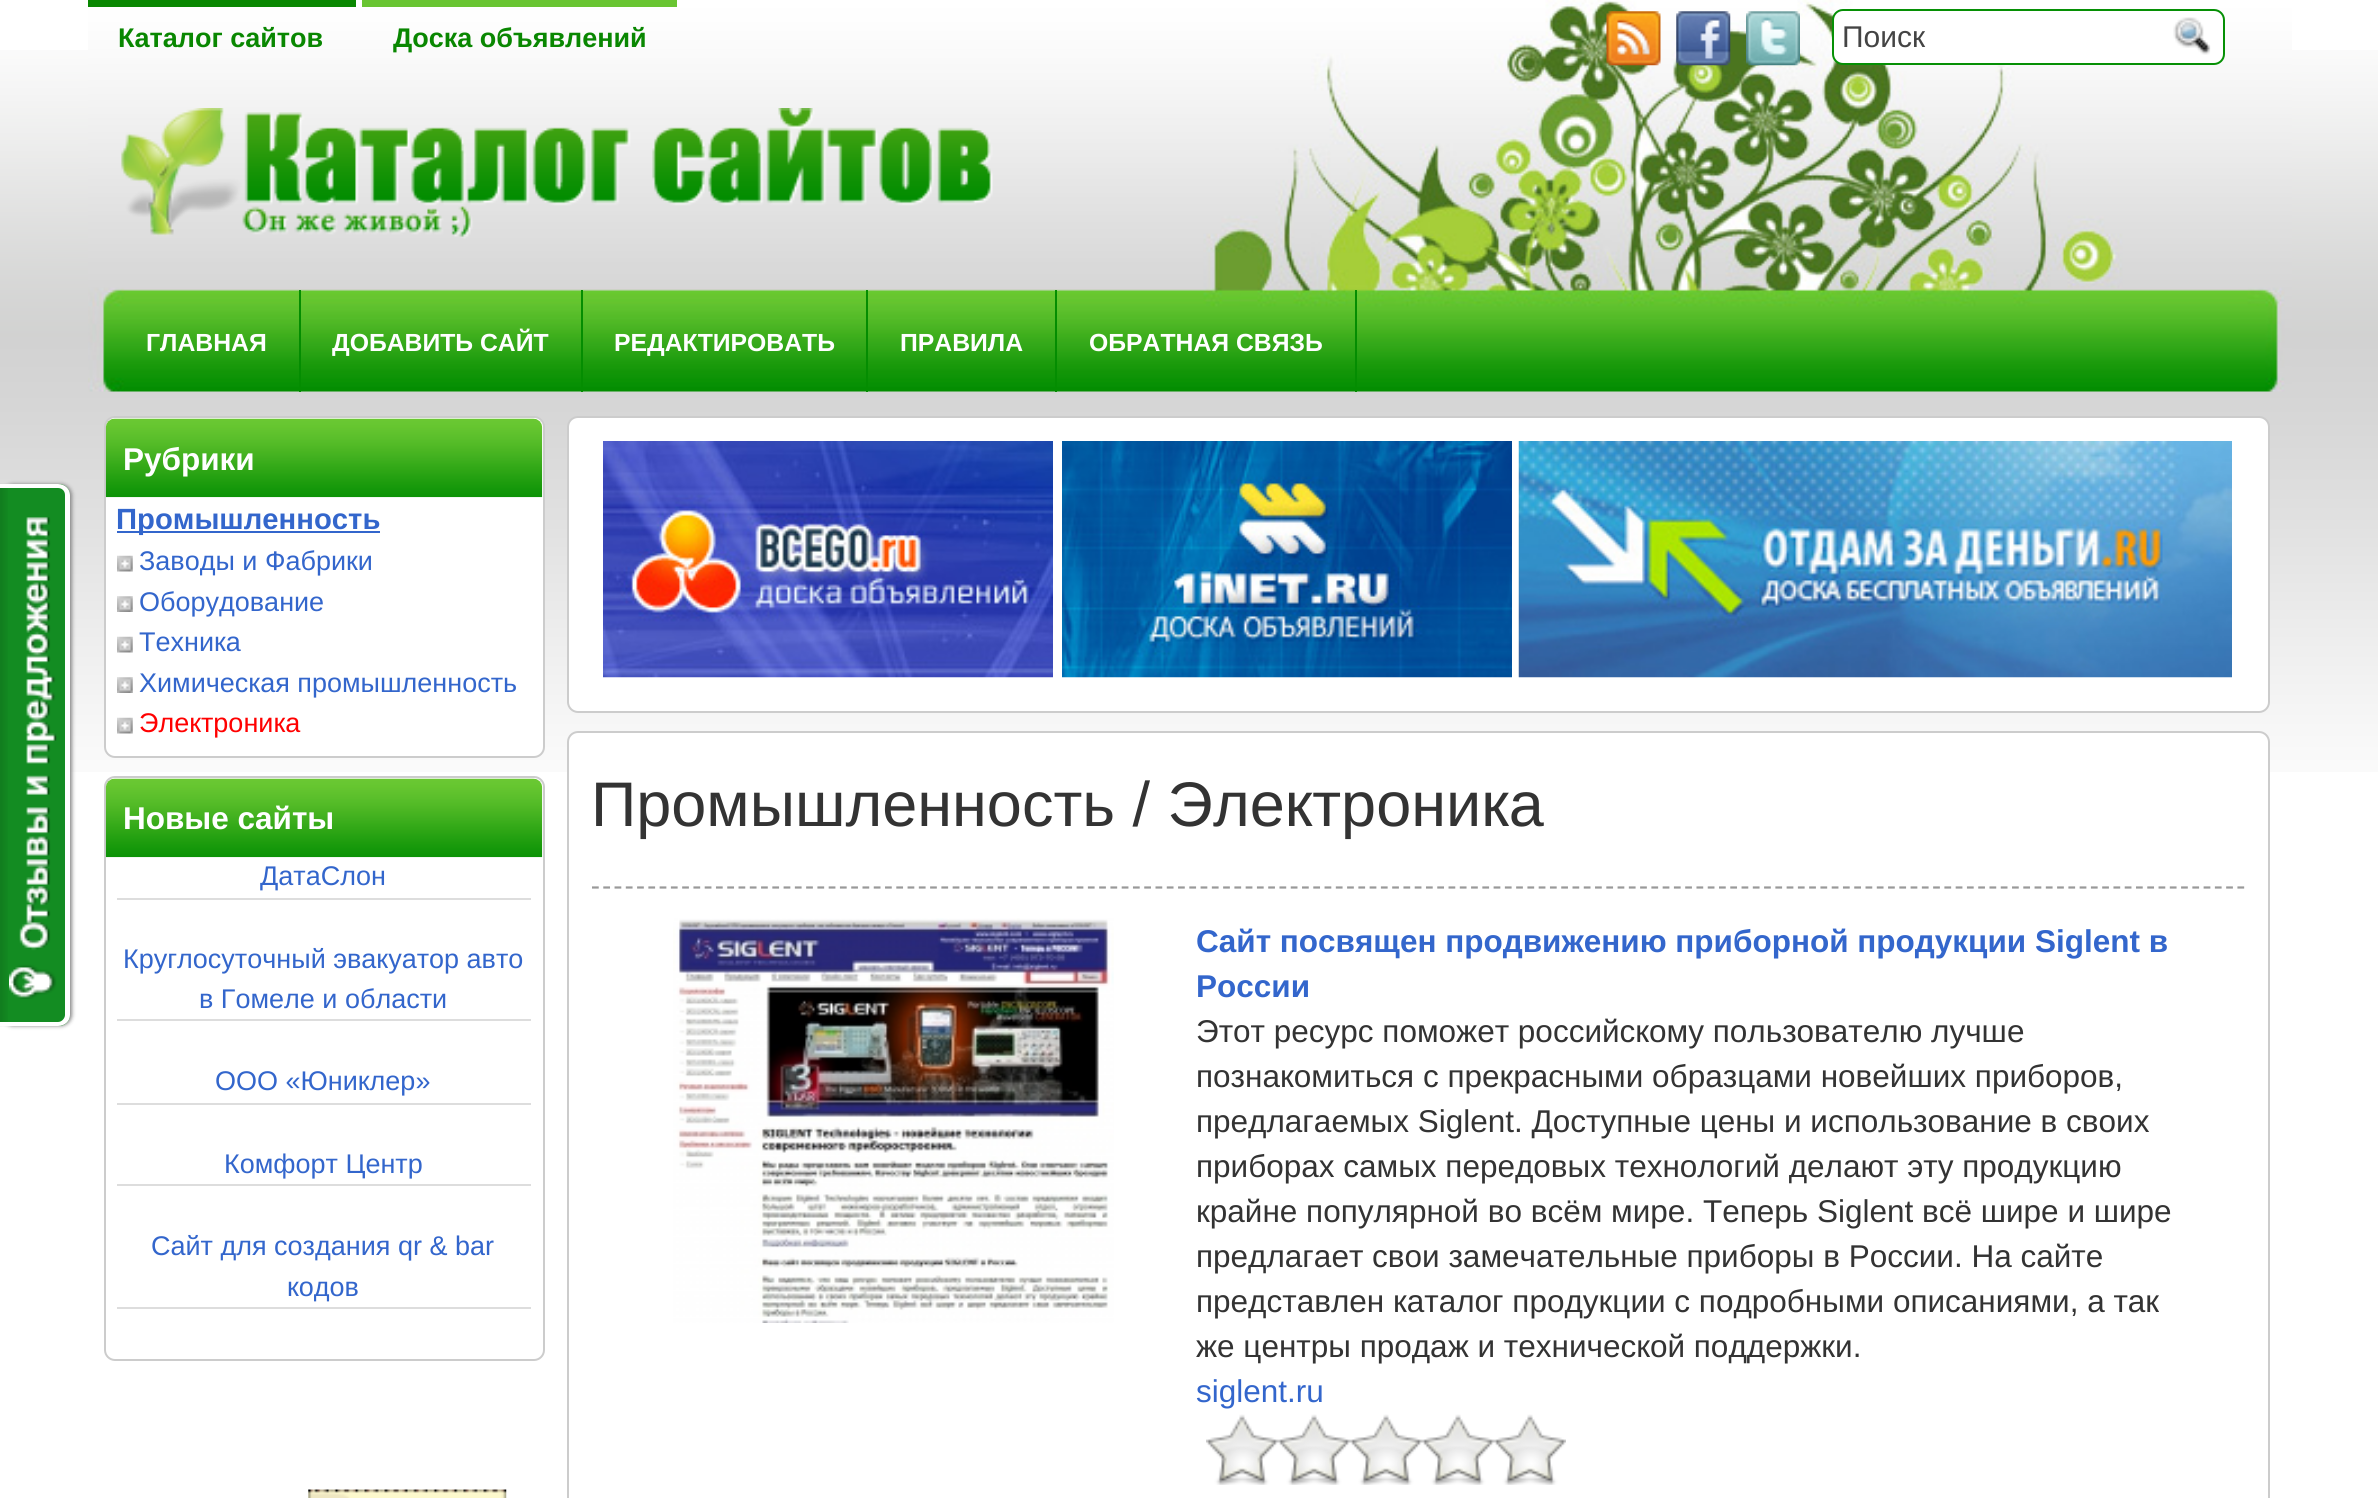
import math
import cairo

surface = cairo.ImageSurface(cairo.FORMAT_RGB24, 2378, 1498)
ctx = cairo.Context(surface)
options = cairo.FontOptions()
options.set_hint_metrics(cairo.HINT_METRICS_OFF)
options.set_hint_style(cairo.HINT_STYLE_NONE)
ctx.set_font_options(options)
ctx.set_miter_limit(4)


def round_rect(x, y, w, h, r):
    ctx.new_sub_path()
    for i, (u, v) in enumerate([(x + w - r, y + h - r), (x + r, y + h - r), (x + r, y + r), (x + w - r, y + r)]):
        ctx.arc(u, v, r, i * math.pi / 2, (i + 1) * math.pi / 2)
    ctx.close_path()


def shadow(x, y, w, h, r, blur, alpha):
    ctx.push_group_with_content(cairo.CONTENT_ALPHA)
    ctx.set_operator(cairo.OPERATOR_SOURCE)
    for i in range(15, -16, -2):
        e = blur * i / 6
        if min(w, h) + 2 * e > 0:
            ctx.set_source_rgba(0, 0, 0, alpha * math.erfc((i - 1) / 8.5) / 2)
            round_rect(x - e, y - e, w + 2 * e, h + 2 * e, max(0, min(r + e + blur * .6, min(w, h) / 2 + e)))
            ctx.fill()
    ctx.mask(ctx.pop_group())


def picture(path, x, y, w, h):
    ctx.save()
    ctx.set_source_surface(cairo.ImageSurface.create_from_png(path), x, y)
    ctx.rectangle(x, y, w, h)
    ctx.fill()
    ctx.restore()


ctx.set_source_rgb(1, 1, 1)
ctx.paint()
picture("img3.png", 0, 50, 2378, 722)
ctx.set_source_rgb(0.533, 0.533, 0.533)
shadow(2, 484, 70, 542, 11, 2, 1)
ctx.set_source_rgb(0.078, 0.549, 0.133)
ctx.new_path()
ctx.move_to(0, 484)
ctx.line_to(59, 484)
ctx.curve_to(65, 484, 70, 489, 70, 495)
ctx.line_to(70, 1015)
ctx.curve_to(70, 1021, 65, 1026, 59, 1026)
ctx.line_to(0, 1026)
ctx.close_path()
ctx.fill()
picture("img1.png", 0, 483, 8, 544)
ctx.set_source_rgb(1, 1, 1)
ctx.set_fill_rule(cairo.FILL_RULE_EVEN_ODD)
ctx.new_path()
ctx.move_to(0, 484)
ctx.line_to(58, 484)
ctx.curve_to(65, 484, 70, 489, 70, 495)
ctx.line_to(70, 1015)
ctx.curve_to(70, 1021, 65, 1026, 58, 1026)
ctx.line_to(0, 1026)
ctx.close_path()
ctx.move_to(0, 488)
ctx.line_to(58, 488)
ctx.curve_to(62, 488, 65, 491, 65, 495)
ctx.line_to(65, 1015)
ctx.curve_to(65, 1018, 62, 1022, 58, 1022)
ctx.line_to(0, 1022)
ctx.close_path()
ctx.fill()
picture("img2.png", 9, 517, 48, 482)
picture("img4.png", 88, 0, 2204, 392)
ctx.set_source_rgb(0.039, 0.529, 0.004)
ctx.rectangle(88, 0, 268, 7)
ctx.fill()
ctx.select_font_face("Liberation Sans", cairo.FONT_SLANT_NORMAL, cairo.FONT_WEIGHT_BOLD)
ctx.set_font_size(27)
ctx.move_to(118, 47)
ctx.show_text("Каталог сайтов")
ctx.set_source_rgb(0.412, 0.773, 0.196)
ctx.rectangle(362, 0, 315, 7)
ctx.fill()
ctx.set_source_rgb(0.039, 0.529, 0.004)
ctx.move_to(393, 47)
ctx.show_text("Доска объявлений")
picture("img5.png", 1606, 11, 55, 55)
picture("img6.png", 1676, 11, 55, 55)
picture("img7.png", 1746, 11, 54, 55)
ctx.set_source_rgb(1, 1, 1)
round_rect(1833, 10, 391, 54, 10)
ctx.fill_preserve()
ctx.set_source_rgb(0.027, 0.565, 0.02)
ctx.stroke()
ctx.select_font_face("Liberation Sans")
ctx.set_font_size(30)
ctx.set_source_rgb(0.267, 0.267, 0.267)
ctx.move_to(1842, 47)
ctx.show_text("Поиск")
picture("img8.png", 2173, 17, 38, 38)
picture("img9.png", 121, 108, 872, 131)
ctx.set_source_rgb(0.016, 0.553, 0.004)
ctx.rectangle(299, 290, 2, 102)
ctx.fill()
ctx.select_font_face("Liberation Sans", cairo.FONT_SLANT_NORMAL, cairo.FONT_WEIGHT_BOLD)
ctx.set_font_size(24.75)
ctx.set_source_rgb(1, 1, 1)
ctx.move_to(146, 351)
ctx.show_text("ГЛАВНАЯ")
ctx.set_source_rgb(0.016, 0.553, 0.004)
ctx.rectangle(581, 290, 2, 102)
ctx.fill()
ctx.set_source_rgb(1, 1, 1)
ctx.move_to(332, 351)
ctx.show_text("ДОБАВИТЬ САЙТ")
ctx.set_source_rgb(0.016, 0.553, 0.004)
ctx.rectangle(866, 290, 2, 102)
ctx.fill()
ctx.set_source_rgb(1, 1, 1)
ctx.move_to(614, 351)
ctx.show_text("РЕДАКТИРОВАТЬ")
ctx.set_source_rgb(0.016, 0.553, 0.004)
ctx.rectangle(1055, 290, 2, 102)
ctx.fill()
ctx.set_source_rgb(1, 1, 1)
ctx.move_to(900, 351)
ctx.show_text("ПРАВИЛА")
ctx.set_source_rgb(0.016, 0.553, 0.004)
ctx.rectangle(1355, 290, 2, 102)
ctx.fill()
ctx.set_source_rgb(1, 1, 1)
ctx.move_to(1089, 351)
ctx.show_text("ОБРАТНАЯ СВЯЗЬ")
round_rect(105, 417, 439, 340, 10)
ctx.fill_preserve()
ctx.set_source_rgb(0.8, 0.8, 0.8)
ctx.stroke()
picture("img10.png", 105, 418, 438, 80)
ctx.set_font_size(31.5)
ctx.set_source_rgb(1, 1, 1)
ctx.move_to(123, 470)
ctx.show_text("Рубрики")
ctx.set_source_rgb(0.2, 0.4, 0.8)
ctx.rectangle(117, 531, 263, 2)
ctx.fill()
ctx.set_font_size(29.25)
ctx.move_to(116, 529)
ctx.show_text("Промышленность")
picture("img11.png", 117, 555, 16, 17)
ctx.select_font_face("Liberation Sans")
ctx.set_font_size(27)
ctx.move_to(139, 570)
ctx.show_text("Заводы и Фабрики")
picture("img12.png", 117, 596, 16, 16)
ctx.move_to(139, 611)
ctx.show_text("Оборудование")
picture("img11.png", 117, 636, 16, 17)
ctx.move_to(139, 651)
ctx.show_text("Техника")
picture("img12.png", 117, 677, 16, 16)
ctx.move_to(139, 692)
ctx.show_text("Химическая промышленность")
picture("img11.png", 117, 717, 16, 17)
ctx.set_source_rgb(1, 0, 0)
ctx.move_to(139, 732)
ctx.show_text("Электроника")
round_rect(105, 777, 439, 583, 10)
ctx.set_source_rgb(0.8, 0.8, 0.8)
ctx.stroke()
picture("img13.png", 105, 778, 438, 80)
ctx.select_font_face("Liberation Sans", cairo.FONT_SLANT_NORMAL, cairo.FONT_WEIGHT_BOLD)
ctx.set_font_size(31.5)
ctx.set_source_rgb(1, 1, 1)
ctx.move_to(123, 829)
ctx.show_text("Новые сайты")
ctx.select_font_face("Liberation Sans")
ctx.set_font_size(27)
ctx.set_source_rgb(0.2, 0.4, 0.8)
ctx.move_to(260, 885)
ctx.show_text("ДатаСлон")
ctx.set_source_rgb(0.867, 0.867, 0.867)
ctx.rectangle(117, 898, 414, 2)
ctx.fill()
ctx.set_source_rgb(0.2, 0.4, 0.8)
ctx.move_to(123, 968)
ctx.show_text("Круглосуточный эвакуатор авто")
ctx.move_to(199, 1008)
ctx.show_text("в Гомеле и области")
ctx.set_source_rgb(0.867, 0.867, 0.867)
ctx.rectangle(117, 1019, 414, 2)
ctx.fill()
ctx.set_source_rgb(0.2, 0.4, 0.8)
ctx.move_to(215, 1090)
ctx.show_text("ООО «Юниклер»")
ctx.set_source_rgb(0.867, 0.867, 0.867)
ctx.rectangle(117, 1103, 414, 2)
ctx.fill()
ctx.set_source_rgb(0.2, 0.4, 0.8)
ctx.move_to(224, 1173)
ctx.show_text("Комфорт Центр")
ctx.set_source_rgb(0.867, 0.867, 0.867)
ctx.rectangle(117, 1184, 414, 2)
ctx.fill()
ctx.set_source_rgb(0.2, 0.4, 0.8)
ctx.move_to(151, 1255)
ctx.show_text("Сайт для создания qr & bar")
ctx.move_to(287, 1296)
ctx.show_text("кодов")
ctx.set_source_rgb(0.867, 0.867, 0.867)
ctx.rectangle(117, 1307, 414, 2)
ctx.fill()
picture("img14.png", 308, 1489, 199, 9)
ctx.set_source_rgb(1, 1, 1)
round_rect(568, 417, 1701, 295, 10)
ctx.fill_preserve()
ctx.set_source_rgb(0.8, 0.8, 0.8)
ctx.stroke()
picture("img15.png", 603, 441, 450, 237)
picture("img16.png", 1062, 441, 450, 237)
picture("img17.png", 1518, 441, 714, 237)
ctx.set_source_rgb(1, 1, 1)
round_rect(568, 732, 1701, 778, 10)
ctx.fill_preserve()
ctx.set_source_rgb(0.8, 0.8, 0.8)
ctx.stroke()
ctx.set_font_size(63)
ctx.set_source_rgb(0.2, 0.2, 0.2)
ctx.move_to(591, 826)
ctx.show_text("Промышленность / Электроника")
ctx.new_path()
ctx.move_to(592, 887.5)
ctx.line_to(2245.5, 887.5)
ctx.set_source_rgb(0.6, 0.6, 0.6)
ctx.set_line_width(2.2)
ctx.set_dash([6.75, 4.52])
ctx.stroke()
picture("img18.png", 673, 918, 441, 405)
ctx.select_font_face("Liberation Sans", cairo.FONT_SLANT_NORMAL, cairo.FONT_WEIGHT_BOLD)
ctx.set_font_size(31.5)
ctx.set_source_rgb(0.2, 0.4, 0.8)
ctx.move_to(1196, 952)
ctx.show_text("Сайт посвящен продвижению приборной продукции Siglent в")
ctx.move_to(1196, 997)
ctx.show_text("России")
ctx.select_font_face("Liberation Sans")
ctx.set_source_rgb(0.2, 0.2, 0.2)
ctx.move_to(1196, 1042)
ctx.show_text("Этот ресурс поможет российскому пользователю лучше")
ctx.move_to(1196, 1087)
ctx.show_text("познакомиться с прекрасными образцами новейших приборов,")
ctx.move_to(1196, 1132)
ctx.show_text("предлагаемых Siglent. Доступные цены и использование в своих")
ctx.move_to(1196, 1177)
ctx.show_text("приборах самых передовых технологий делают эту продукцию")
ctx.move_to(1196, 1222)
ctx.show_text("крайне популярной во всём мире. Теперь Siglent всё шире и шире")
ctx.move_to(1196, 1267)
ctx.show_text("предлагает свои замечательные приборы в России. На сайте")
ctx.move_to(1196, 1312)
ctx.show_text("представлен каталог продукции с подробными описаниями, а так")
ctx.move_to(1196, 1357)
ctx.show_text("же центры продаж и технической поддержки.")
ctx.set_source_rgb(0.2, 0.4, 0.8)
ctx.move_to(1196, 1402)
ctx.show_text("siglent.ru")
picture("img19.png", 1206, 1414, 360, 71)
surface.write_to_png("page.png")
